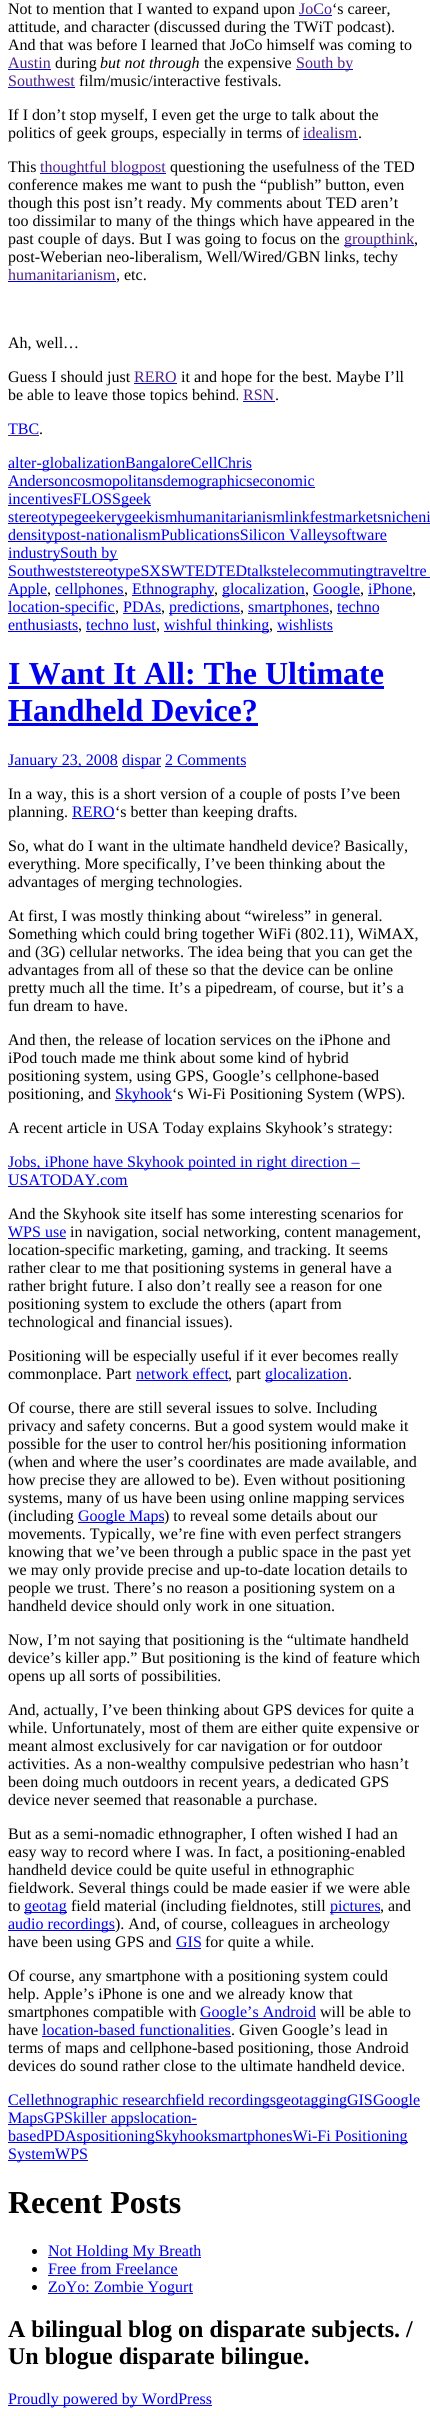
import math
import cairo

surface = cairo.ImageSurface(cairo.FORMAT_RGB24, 430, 2416)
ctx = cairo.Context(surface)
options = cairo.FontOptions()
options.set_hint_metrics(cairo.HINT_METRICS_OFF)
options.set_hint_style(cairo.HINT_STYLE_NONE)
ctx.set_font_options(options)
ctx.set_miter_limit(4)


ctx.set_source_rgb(1, 1, 1)
ctx.paint()
ctx.select_font_face("Liberation Serif")
ctx.set_font_size(16)
ctx.set_source_rgb(0, 0, 0)
ctx.move_to(8, 14)
ctx.show_text("Not to mention that I wanted to expand upon")
ctx.set_source_rgb(0.29, 0.137, 0.529)
ctx.move_to(299, 14)
ctx.show_text("JoCo")
ctx.set_source_rgb(0, 0, 0.933)
ctx.rectangle(299, 15, 33, 1)
ctx.fill()
ctx.set_source_rgb(0, 0, 0)
ctx.move_to(332, 14)
ctx.show_text("‘s career,")
ctx.move_to(8, 32)
ctx.show_text("attitude, and character (discussed during the TWiT podcast).")
ctx.move_to(8, 50)
ctx.show_text("And that was before I learned that JoCo himself was coming to")
ctx.set_source_rgb(0.29, 0.137, 0.529)
ctx.move_to(8, 68)
ctx.show_text("Austin")
ctx.set_source_rgb(0, 0, 0.933)
ctx.rectangle(8, 69, 43, 1)
ctx.fill()
ctx.set_source_rgb(0, 0, 0)
ctx.move_to(55, 68)
ctx.show_text("during")
ctx.select_font_face("Liberation Serif", cairo.FONT_SLANT_ITALIC)
ctx.move_to(100, 68)
ctx.show_text("but not through")
ctx.select_font_face("Liberation Serif")
ctx.move_to(204, 68)
ctx.show_text("the expensive")
ctx.set_source_rgb(0, 0, 0.933)
ctx.rectangle(296, 69, 57, 1)
ctx.fill()
ctx.set_source_rgb(0.29, 0.137, 0.529)
ctx.move_to(296, 68)
ctx.show_text("South by")
ctx.move_to(8, 86)
ctx.show_text("Southwest")
ctx.set_source_rgb(0, 0, 0.933)
ctx.rectangle(8, 87, 67, 1)
ctx.fill()
ctx.set_source_rgb(0, 0, 0)
ctx.move_to(79, 86)
ctx.show_text("film/music/interactive festivals.")
ctx.move_to(8, 120)
ctx.show_text("If I don’t stop myself, I even get the urge to talk about the")
ctx.move_to(8, 138)
ctx.show_text("politics of geek groups, especially in terms of")
ctx.set_source_rgb(0.29, 0.137, 0.529)
ctx.move_to(303, 138)
ctx.show_text("idealism")
ctx.set_source_rgb(0, 0, 0.933)
ctx.rectangle(303, 139, 55, 1)
ctx.fill()
ctx.set_source_rgb(0, 0, 0)
ctx.move_to(358, 138)
ctx.show_text(".")
ctx.move_to(8, 172)
ctx.show_text("This")
ctx.set_source_rgb(0, 0, 0.933)
ctx.rectangle(40, 173, 126, 1)
ctx.fill()
ctx.set_source_rgb(0.29, 0.137, 0.529)
ctx.move_to(40, 172)
ctx.show_text("thoughtful blogpost")
ctx.set_source_rgb(0, 0, 0)
ctx.move_to(170, 172)
ctx.show_text("questioning the usefulness of the TED")
ctx.move_to(8, 190)
ctx.show_text("conference makes me want to push the “publish” button, even")
ctx.move_to(8, 208)
ctx.show_text("though this post isn’t ready. My comments about TED aren’t")
ctx.move_to(8, 226)
ctx.show_text("too dissimilar to many of the things which have appeared in the")
ctx.move_to(8, 244)
ctx.show_text("past couple of days. But I was going to focus on the")
ctx.set_source_rgb(0, 0, 0.933)
ctx.rectangle(344, 245, 70, 1)
ctx.fill()
ctx.set_source_rgb(0.29, 0.137, 0.529)
ctx.move_to(344, 244)
ctx.show_text("groupthink")
ctx.set_source_rgb(0, 0, 0)
ctx.move_to(414, 244)
ctx.show_text(",")
ctx.move_to(8, 262)
ctx.show_text("post-Weberian neo-liberalism, Well/Wired/GBN links, techy")
ctx.set_source_rgb(0.29, 0.137, 0.529)
ctx.move_to(8, 280)
ctx.show_text("humanitarianism")
ctx.set_source_rgb(0, 0, 0.933)
ctx.rectangle(8, 281, 108, 1)
ctx.fill()
ctx.set_source_rgb(0, 0, 0)
ctx.move_to(116, 280)
ctx.show_text(", etc.")
ctx.move_to(8, 348)
ctx.show_text("Ah, well…")
ctx.move_to(8, 382)
ctx.show_text("Guess I should just")
ctx.set_source_rgb(0.29, 0.137, 0.529)
ctx.move_to(134, 382)
ctx.show_text("RERO")
ctx.set_source_rgb(0, 0, 0.933)
ctx.rectangle(134, 383, 43, 1)
ctx.fill()
ctx.set_source_rgb(0, 0, 0)
ctx.move_to(181, 382)
ctx.show_text("it and hope for the best. Maybe I’ll")
ctx.move_to(8, 400)
ctx.show_text("be able to leave those topics behind.")
ctx.set_source_rgb(0.29, 0.137, 0.529)
ctx.move_to(243, 400)
ctx.show_text("RSN")
ctx.set_source_rgb(0, 0, 0.933)
ctx.rectangle(243, 401, 32, 1)
ctx.fill()
ctx.set_source_rgb(0, 0, 0)
ctx.move_to(275, 400)
ctx.show_text(".")
ctx.set_source_rgb(0, 0, 0.933)
ctx.move_to(8, 434)
ctx.show_text("TBC")
ctx.set_source_rgb(0.29, 0.137, 0.529)
ctx.rectangle(8, 435, 31, 1)
ctx.fill()
ctx.set_source_rgb(0, 0, 0)
ctx.move_to(39, 434)
ctx.show_text(".")
ctx.set_source_rgb(0, 0, 0.933)
ctx.rectangle(8, 469, 117, 1)
ctx.fill()
ctx.move_to(8, 468)
ctx.show_text("alter-globalization")
ctx.rectangle(125, 469, 127, 1)
ctx.fill()
ctx.move_to(125, 468)
ctx.show_text("BangaloreCellChris")
ctx.rectangle(8, 487, 307, 1)
ctx.fill()
ctx.move_to(8, 486)
ctx.show_text("Andersoncosmopolitansdemographicseconomic")
ctx.rectangle(8, 505, 143, 1)
ctx.fill()
ctx.move_to(8, 504)
ctx.show_text("incentivesFLOSSgeek")
ctx.rectangle(8, 523, 116, 1)
ctx.fill()
ctx.move_to(8, 522)
ctx.show_text("stereotypegeekery")
ctx.rectangle(124, 523, 209, 1)
ctx.fill()
ctx.move_to(124, 522)
ctx.show_text("geekismhumanitarianismlinkfestmarketsnicheni")
ctx.rectangle(333, 523, 97, 1)
ctx.fill()
ctx.rectangle(8, 541, 46, 1)
ctx.fill()
ctx.move_to(8, 540)
ctx.show_text("density")
ctx.rectangle(54, 541, 333, 1)
ctx.fill()
ctx.move_to(54, 540)
ctx.show_text("post-nationalismPublicationsSilicon Valleysoftware")
ctx.rectangle(8, 559, 52, 1)
ctx.fill()
ctx.move_to(8, 558)
ctx.show_text("industry")
ctx.rectangle(60, 559, 58, 1)
ctx.fill()
ctx.move_to(60, 558)
ctx.show_text("South by")
ctx.rectangle(8, 577, 422, 1)
ctx.fill()
ctx.move_to(8, 576)
ctx.show_text("SouthweststereotypeSXSWTEDTEDtalkstelecommutingtraveltre")
ctx.rectangle(8, 595, 39, 1)
ctx.fill()
ctx.move_to(8, 594)
ctx.show_text("Apple")
ctx.set_source_rgb(0, 0, 0)
ctx.move_to(47, 594)
ctx.show_text(",")
ctx.set_source_rgb(0, 0, 0.933)
ctx.rectangle(55, 595, 69, 1)
ctx.fill()
ctx.move_to(55, 594)
ctx.show_text("cellphones")
ctx.set_source_rgb(0, 0, 0)
ctx.move_to(124, 594)
ctx.show_text(",")
ctx.set_source_rgb(0, 0, 0.933)
ctx.rectangle(132, 595, 82, 1)
ctx.fill()
ctx.move_to(132, 594)
ctx.show_text("Ethnography")
ctx.set_source_rgb(0, 0, 0)
ctx.move_to(214, 594)
ctx.show_text(",")
ctx.set_source_rgb(0, 0, 0.933)
ctx.rectangle(222, 595, 83, 1)
ctx.fill()
ctx.move_to(222, 594)
ctx.show_text("glocalization")
ctx.set_source_rgb(0, 0, 0)
ctx.move_to(305, 594)
ctx.show_text(",")
ctx.set_source_rgb(0, 0, 0.933)
ctx.rectangle(313, 595, 47, 1)
ctx.fill()
ctx.move_to(313, 594)
ctx.show_text("Google")
ctx.set_source_rgb(0, 0, 0)
ctx.move_to(360, 594)
ctx.show_text(",")
ctx.set_source_rgb(0, 0, 0.933)
ctx.move_to(368, 594)
ctx.show_text("iPhone")
ctx.set_source_rgb(0, 0, 0)
ctx.move_to(412, 594)
ctx.show_text(",")
ctx.set_source_rgb(0, 0, 0.933)
ctx.rectangle(368, 595, 44, 1)
ctx.fill()
ctx.rectangle(8, 613, 107, 1)
ctx.fill()
ctx.move_to(8, 612)
ctx.show_text("location-specific")
ctx.set_source_rgb(0, 0, 0)
ctx.move_to(115, 612)
ctx.show_text(",")
ctx.set_source_rgb(0, 0, 0.933)
ctx.move_to(123, 612)
ctx.show_text("PDAs")
ctx.set_source_rgb(0, 0, 0)
ctx.move_to(161, 612)
ctx.show_text(",")
ctx.set_source_rgb(0, 0, 0.933)
ctx.rectangle(123, 613, 38, 1)
ctx.fill()
ctx.rectangle(169, 613, 71, 1)
ctx.fill()
ctx.move_to(169, 612)
ctx.show_text("predictions")
ctx.set_source_rgb(0, 0, 0)
ctx.move_to(240, 612)
ctx.show_text(",")
ctx.set_source_rgb(0, 0, 0.933)
ctx.rectangle(248, 613, 81, 1)
ctx.fill()
ctx.move_to(248, 612)
ctx.show_text("smartphones")
ctx.set_source_rgb(0, 0, 0)
ctx.move_to(329, 612)
ctx.show_text(",")
ctx.set_source_rgb(0, 0, 0.933)
ctx.rectangle(337, 613, 42, 1)
ctx.fill()
ctx.move_to(337, 612)
ctx.show_text("techno")
ctx.move_to(8, 630)
ctx.show_text("enthusiasts")
ctx.set_source_rgb(0, 0, 0)
ctx.move_to(78, 630)
ctx.show_text(",")
ctx.set_source_rgb(0, 0, 0.933)
ctx.rectangle(8, 631, 70, 1)
ctx.fill()
ctx.move_to(86, 630)
ctx.show_text("techno lust")
ctx.set_source_rgb(0, 0, 0)
ctx.move_to(156, 630)
ctx.show_text(",")
ctx.set_source_rgb(0, 0, 0.933)
ctx.rectangle(86, 631, 70, 1)
ctx.fill()
ctx.rectangle(164, 631, 105, 1)
ctx.fill()
ctx.move_to(164, 630)
ctx.show_text("wishful thinking")
ctx.set_source_rgb(0, 0, 0)
ctx.move_to(269, 630)
ctx.show_text(",")
ctx.set_source_rgb(0, 0, 0.933)
ctx.rectangle(277, 631, 56, 1)
ctx.fill()
ctx.move_to(277, 630)
ctx.show_text("wishlists")
ctx.select_font_face("Liberation Serif", cairo.FONT_SLANT_NORMAL, cairo.FONT_WEIGHT_BOLD)
ctx.set_font_size(32)
ctx.move_to(8, 684)
ctx.show_text("I Want It All: The Ultimate")
ctx.rectangle(8, 686, 376, 3)
ctx.fill()
ctx.move_to(8, 721)
ctx.show_text("Handheld Device?")
ctx.rectangle(8, 723, 250, 3)
ctx.fill()
ctx.rectangle(8, 766, 110, 1)
ctx.fill()
ctx.select_font_face("Liberation Serif")
ctx.set_font_size(16)
ctx.move_to(8, 765)
ctx.show_text("January 23, 2008")
ctx.rectangle(122, 766, 39, 1)
ctx.fill()
ctx.move_to(122, 765)
ctx.show_text("dispar 2 Comments")
ctx.rectangle(165, 766, 81, 1)
ctx.fill()
ctx.set_source_rgb(0, 0, 0)
ctx.move_to(8, 799)
ctx.show_text("In a way, this is a short version of a couple of posts I’ve been")
ctx.move_to(8, 817)
ctx.show_text("planning.")
ctx.set_source_rgb(0, 0, 0.933)
ctx.move_to(72, 817)
ctx.show_text("RERO")
ctx.rectangle(72, 818, 43, 1)
ctx.fill()
ctx.set_source_rgb(0, 0, 0)
ctx.move_to(115, 817)
ctx.show_text("‘s better than keeping drafts.")
ctx.move_to(8, 851)
ctx.show_text("So, what do I want in the ultimate handheld device? Basically,")
ctx.move_to(8, 869)
ctx.show_text("everything. More specifically, I’ve been thinking about the")
ctx.move_to(8, 887)
ctx.show_text("advantages of merging technologies.")
ctx.move_to(8, 921)
ctx.show_text("At first, I was mostly thinking about “wireless” in general.")
ctx.move_to(8, 939)
ctx.show_text("Something which could bring together WiFi (802.11), WiMAX,")
ctx.move_to(8, 957)
ctx.show_text("and (3G) cellular networks. The idea being that you can get the")
ctx.move_to(8, 975)
ctx.show_text("advantages from all of these so that the device can be online")
ctx.move_to(8, 993)
ctx.show_text("pretty much all the time. It’s a pipedream, of course, but it’s a")
ctx.move_to(8, 1011)
ctx.show_text("fun dream to have.")
ctx.move_to(8, 1045)
ctx.show_text("And then, the release of location services on the iPhone and")
ctx.move_to(8, 1063)
ctx.show_text("iPod touch made me think about some kind of hybrid")
ctx.move_to(8, 1081)
ctx.show_text("positioning system, using GPS, Google’s cellphone-based")
ctx.move_to(8, 1099)
ctx.show_text("positioning, and")
ctx.set_source_rgb(0, 0, 0.933)
ctx.rectangle(115, 1100, 57, 1)
ctx.fill()
ctx.move_to(115, 1099)
ctx.show_text("Skyhook")
ctx.set_source_rgb(0, 0, 0)
ctx.move_to(172, 1099)
ctx.show_text("‘s Wi-Fi Positioning System (WPS).")
ctx.move_to(8, 1133)
ctx.show_text("A recent article in USA Today explains Skyhook’s strategy:")
ctx.set_source_rgb(0, 0, 0.933)
ctx.rectangle(8, 1168, 352, 1)
ctx.fill()
ctx.move_to(8, 1167)
ctx.show_text("Jobs, iPhone have Skyhook pointed in right direction –")
ctx.move_to(8, 1185)
ctx.show_text("USATODAY.com")
ctx.rectangle(8, 1186, 120, 1)
ctx.fill()
ctx.set_source_rgb(0, 0, 0)
ctx.move_to(8, 1219)
ctx.show_text("And the Skyhook site itself has some interesting scenarios for")
ctx.set_source_rgb(0, 0, 0.933)
ctx.move_to(8, 1237)
ctx.show_text("WPS use")
ctx.rectangle(8, 1238, 58, 1)
ctx.fill()
ctx.set_source_rgb(0, 0, 0)
ctx.move_to(70, 1237)
ctx.show_text("in navigation, social networking, content management,")
ctx.move_to(8, 1255)
ctx.show_text("location-specific marketing, gaming, and tracking. It seems")
ctx.move_to(8, 1273)
ctx.show_text("rather clear to me that positioning systems in general have a")
ctx.move_to(8, 1291)
ctx.show_text("rather bright future. I also don’t really see a reason for one")
ctx.move_to(8, 1309)
ctx.show_text("positioning system to exclude the others (apart from")
ctx.move_to(8, 1327)
ctx.show_text("technological and financial issues).")
ctx.move_to(8, 1361)
ctx.show_text("Positioning will be especially useful if it ever becomes really")
ctx.move_to(8, 1379)
ctx.show_text("commonplace. Part")
ctx.set_source_rgb(0, 0, 0.933)
ctx.move_to(136, 1379)
ctx.show_text("network effect")
ctx.rectangle(136, 1380, 92, 1)
ctx.fill()
ctx.set_source_rgb(0, 0, 0)
ctx.move_to(228, 1379)
ctx.show_text(", part")
ctx.set_source_rgb(0, 0, 0.933)
ctx.rectangle(265, 1380, 83, 1)
ctx.fill()
ctx.move_to(265, 1379)
ctx.show_text("glocalization")
ctx.set_source_rgb(0, 0, 0)
ctx.move_to(348, 1379)
ctx.show_text(".")
ctx.move_to(8, 1413)
ctx.show_text("Of course, there are still several issues to solve. Including")
ctx.move_to(8, 1431)
ctx.show_text("privacy and safety concerns. But a good system would make it")
ctx.move_to(8, 1449)
ctx.show_text("possible for the user to control her/his positioning information")
ctx.move_to(8, 1467)
ctx.show_text("(when and where the user’s coordinates are made available, and")
ctx.move_to(8, 1485)
ctx.show_text("how precise they are allowed to be). Even without positioning")
ctx.move_to(8, 1503)
ctx.show_text("systems, many of us have been using online mapping services")
ctx.move_to(8, 1521)
ctx.show_text("(including")
ctx.set_source_rgb(0, 0, 0.933)
ctx.rectangle(78, 1522, 86, 1)
ctx.fill()
ctx.move_to(78, 1521)
ctx.show_text("Google Maps")
ctx.set_source_rgb(0, 0, 0)
ctx.move_to(164, 1521)
ctx.show_text(") to reveal some details about our")
ctx.move_to(8, 1539)
ctx.show_text("movements. Typically, we’re fine with even perfect strangers")
ctx.move_to(8, 1557)
ctx.show_text("knowing that we’ve been through a public space in the past yet")
ctx.move_to(8, 1575)
ctx.show_text("we may only provide precise and up-to-date location details to")
ctx.move_to(8, 1593)
ctx.show_text("people we trust. There’s no reason a positioning system on a")
ctx.move_to(8, 1611)
ctx.show_text("handheld device should only work in one situation.")
ctx.move_to(8, 1645)
ctx.show_text("Now, I’m not saying that positioning is the “ultimate handheld")
ctx.move_to(8, 1663)
ctx.show_text("device’s killer app.” But positioning is the kind of feature which")
ctx.move_to(8, 1681)
ctx.show_text("opens up all sorts of possibilities.")
ctx.move_to(8, 1715)
ctx.show_text("And, actually, I’ve been thinking about GPS devices for quite a")
ctx.move_to(8, 1733)
ctx.show_text("while. Unfortunately, most of them are either quite expensive or")
ctx.move_to(8, 1751)
ctx.show_text("meant almost exclusively for car navigation or for outdoor")
ctx.move_to(8, 1769)
ctx.show_text("activities. As a non-wealthy compulsive pedestrian who hasn’t")
ctx.move_to(8, 1787)
ctx.show_text("been doing much outdoors in recent years, a dedicated GPS")
ctx.move_to(8, 1805)
ctx.show_text("device never seemed that reasonable a purchase.")
ctx.move_to(8, 1839)
ctx.show_text("But as a semi-nomadic ethnographer, I often wished I had an")
ctx.move_to(8, 1857)
ctx.show_text("easy way to record where I was. In fact, a positioning-enabled")
ctx.move_to(8, 1875)
ctx.show_text("handheld device could be quite useful in ethnographic")
ctx.move_to(8, 1893)
ctx.show_text("fieldwork. Several things could be made easier if we were able")
ctx.move_to(8, 1911)
ctx.show_text("to")
ctx.set_source_rgb(0, 0, 0.933)
ctx.rectangle(24, 1912, 43, 1)
ctx.fill()
ctx.move_to(24, 1911)
ctx.show_text("geotag")
ctx.set_source_rgb(0, 0, 0)
ctx.move_to(71, 1911)
ctx.show_text("field material (including fieldnotes, still")
ctx.set_source_rgb(0, 0, 0.933)
ctx.rectangle(330, 1912, 50, 1)
ctx.fill()
ctx.move_to(330, 1911)
ctx.show_text("pictures")
ctx.set_source_rgb(0, 0, 0)
ctx.move_to(380, 1911)
ctx.show_text(", and")
ctx.set_source_rgb(0, 0, 0.933)
ctx.rectangle(8, 1930, 107, 1)
ctx.fill()
ctx.move_to(8, 1929)
ctx.show_text("audio recordings")
ctx.set_source_rgb(0, 0, 0)
ctx.move_to(115, 1929)
ctx.show_text("). And, of course, colleagues in archeology")
ctx.move_to(8, 1947)
ctx.show_text("have been using GPS and")
ctx.set_source_rgb(0, 0, 0.933)
ctx.move_to(176, 1947)
ctx.show_text("GIS")
ctx.rectangle(176, 1948, 25, 1)
ctx.fill()
ctx.set_source_rgb(0, 0, 0)
ctx.move_to(205, 1947)
ctx.show_text("for quite a while.")
ctx.move_to(8, 1981)
ctx.show_text("Of course, any smartphone with a positioning system could")
ctx.move_to(8, 1999)
ctx.show_text("help. Apple’s iPhone is one and we already know that")
ctx.move_to(8, 2017)
ctx.show_text("smartphones compatible with")
ctx.set_source_rgb(0, 0, 0.933)
ctx.rectangle(200, 2018, 116, 1)
ctx.fill()
ctx.move_to(200, 2017)
ctx.show_text("Google’s Android")
ctx.set_source_rgb(0, 0, 0)
ctx.move_to(320, 2017)
ctx.show_text("will be able to")
ctx.move_to(8, 2035)
ctx.show_text("have")
ctx.set_source_rgb(0, 0, 0.933)
ctx.move_to(42, 2035)
ctx.show_text("location-based functionalities")
ctx.rectangle(42, 2036, 189, 1)
ctx.fill()
ctx.set_source_rgb(0, 0, 0)
ctx.move_to(231, 2035)
ctx.show_text(". Given Google’s lead in")
ctx.move_to(8, 2053)
ctx.show_text("terms of maps and cellphone-based positioning, those Android")
ctx.move_to(8, 2071)
ctx.show_text("devices do sound rather close to the ultimate handheld device.")
ctx.set_source_rgb(0, 0, 0.933)
ctx.rectangle(8, 2106, 167, 1)
ctx.fill()
ctx.move_to(8, 2105)
ctx.show_text("Cellethnographic research")
ctx.rectangle(175, 2106, 172, 1)
ctx.fill()
ctx.move_to(175, 2105)
ctx.show_text("field recordingsgeotaggingGIS")
ctx.rectangle(347, 2106, 73, 1)
ctx.fill()
ctx.move_to(373, 2105)
ctx.show_text("Google")
ctx.rectangle(8, 2124, 189, 1)
ctx.fill()
ctx.move_to(8, 2123)
ctx.show_text("MapsGPSkiller appslocation-")
ctx.rectangle(8, 2142, 400, 1)
ctx.fill()
ctx.move_to(8, 2141)
ctx.show_text("basedPDAspositioningSkyhooksmartphonesWi-Fi Positioning")
ctx.rectangle(8, 2160, 80, 1)
ctx.fill()
ctx.move_to(8, 2159)
ctx.show_text("SystemWPS")
ctx.select_font_face("Liberation Serif", cairo.FONT_SLANT_NORMAL, cairo.FONT_WEIGHT_BOLD)
ctx.set_font_size(32)
ctx.set_source_rgb(0, 0, 0)
ctx.move_to(8, 2213)
ctx.show_text("Recent Posts")
ctx.new_path()
ctx.arc(34.5, 2251.5, 2.5, 0, 2 * math.pi)
ctx.fill()
ctx.set_source_rgb(0, 0, 0.933)
ctx.rectangle(48, 2257, 153, 1)
ctx.fill()
ctx.select_font_face("Liberation Serif")
ctx.set_font_size(16)
ctx.move_to(48, 2256)
ctx.show_text("Not Holding My Breath")
ctx.set_source_rgb(0, 0, 0)
ctx.new_path()
ctx.arc(34.5, 2269.5, 2.5, 0, 2 * math.pi)
ctx.fill()
ctx.set_source_rgb(0, 0, 0.933)
ctx.move_to(48, 2274)
ctx.show_text("Free from Freelance")
ctx.rectangle(48, 2275, 130, 1)
ctx.fill()
ctx.set_source_rgb(0, 0, 0)
ctx.arc(34.5, 2287.5, 2.5, 0, 2 * math.pi)
ctx.fill()
ctx.set_source_rgb(0, 0, 0.933)
ctx.rectangle(48, 2293, 145, 1)
ctx.fill()
ctx.move_to(48, 2292)
ctx.show_text("ZoYo: Zombie Yogurt")
ctx.select_font_face("Liberation Serif", cairo.FONT_SLANT_NORMAL, cairo.FONT_WEIGHT_BOLD)
ctx.set_font_size(24)
ctx.set_source_rgb(0, 0, 0)
ctx.move_to(8, 2337)
ctx.show_text("A bilingual blog on disparate subjects. /")
ctx.move_to(8, 2364)
ctx.show_text("Un blogue disparate bilingue.")
ctx.set_source_rgb(0, 0, 0.933)
ctx.rectangle(8, 2405, 204, 1)
ctx.fill()
ctx.select_font_face("Liberation Serif")
ctx.set_font_size(16)
ctx.move_to(8, 2404)
ctx.show_text("Proudly powered by WordPress")
surface.write_to_png("page.png")
